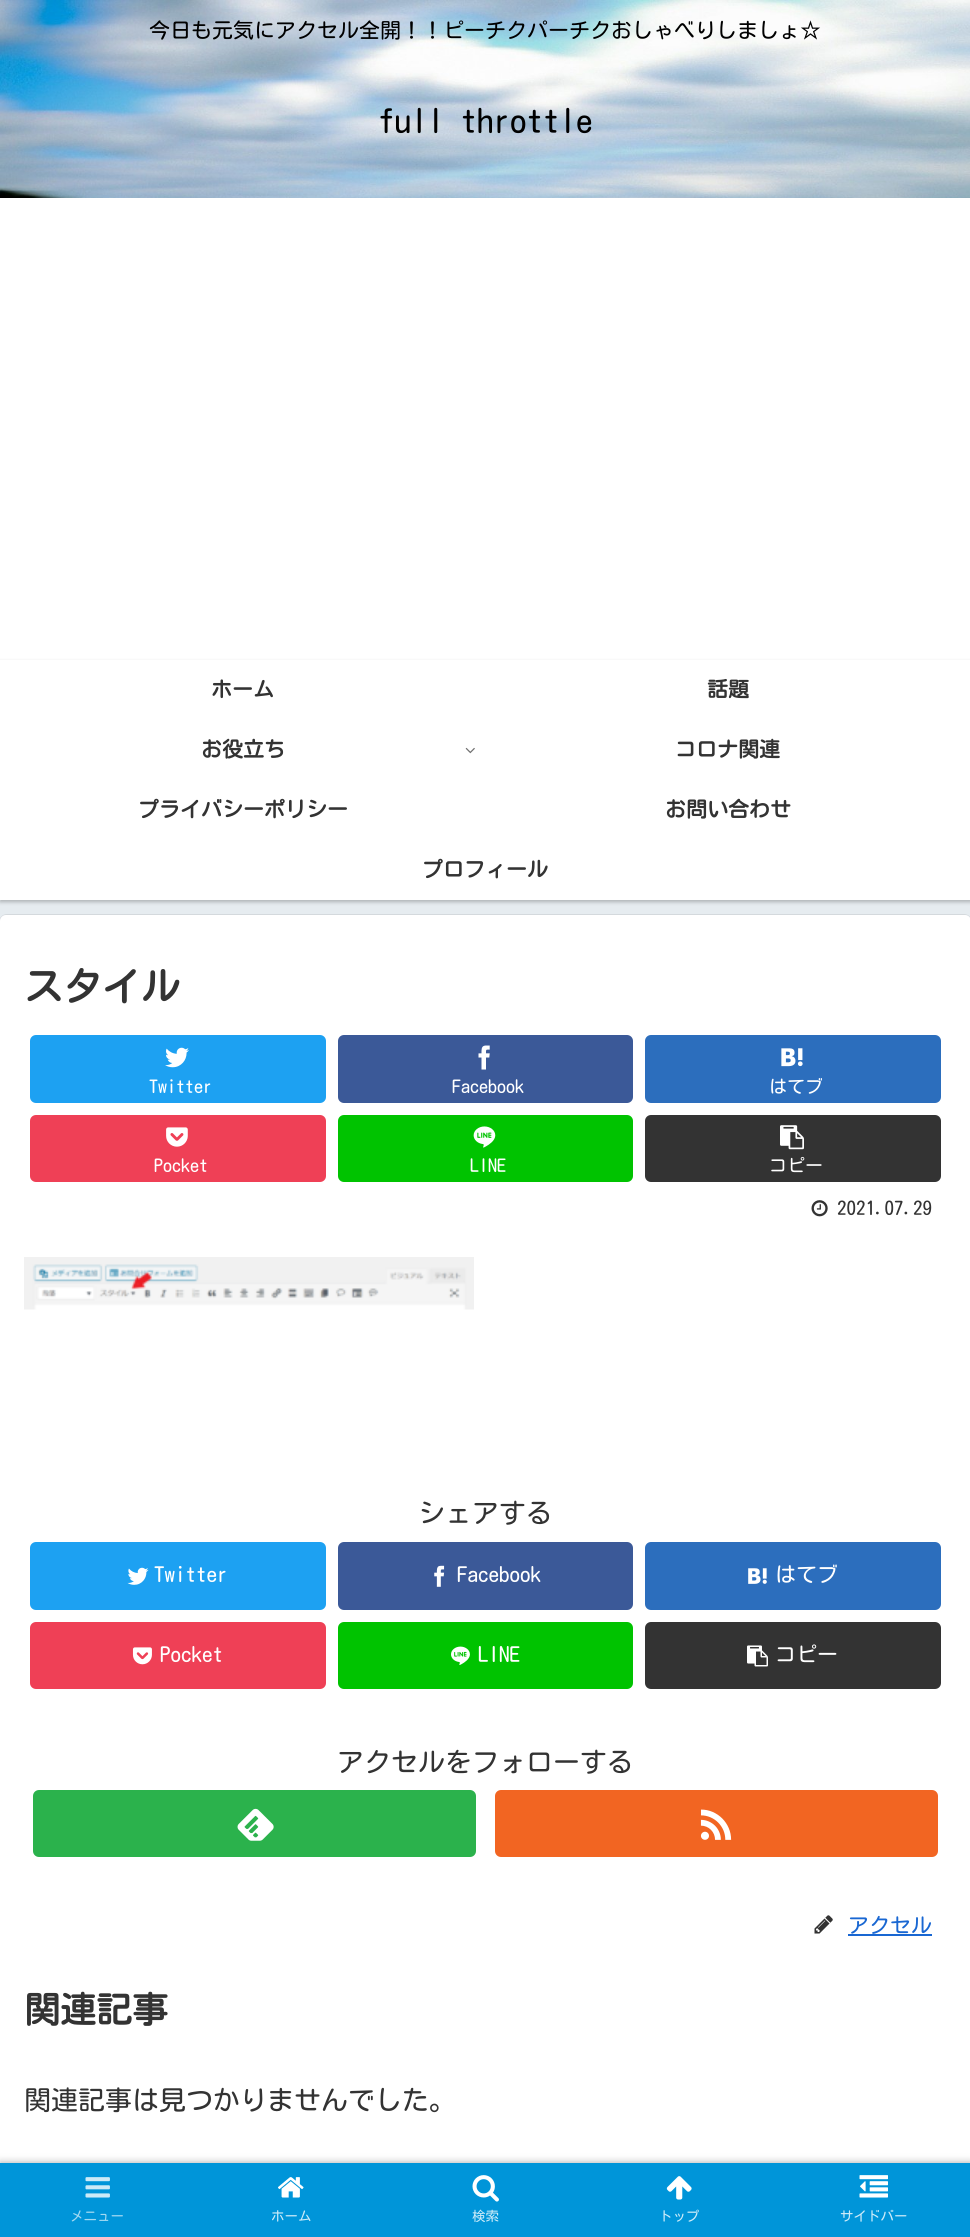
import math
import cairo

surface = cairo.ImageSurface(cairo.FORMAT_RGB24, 970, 2237)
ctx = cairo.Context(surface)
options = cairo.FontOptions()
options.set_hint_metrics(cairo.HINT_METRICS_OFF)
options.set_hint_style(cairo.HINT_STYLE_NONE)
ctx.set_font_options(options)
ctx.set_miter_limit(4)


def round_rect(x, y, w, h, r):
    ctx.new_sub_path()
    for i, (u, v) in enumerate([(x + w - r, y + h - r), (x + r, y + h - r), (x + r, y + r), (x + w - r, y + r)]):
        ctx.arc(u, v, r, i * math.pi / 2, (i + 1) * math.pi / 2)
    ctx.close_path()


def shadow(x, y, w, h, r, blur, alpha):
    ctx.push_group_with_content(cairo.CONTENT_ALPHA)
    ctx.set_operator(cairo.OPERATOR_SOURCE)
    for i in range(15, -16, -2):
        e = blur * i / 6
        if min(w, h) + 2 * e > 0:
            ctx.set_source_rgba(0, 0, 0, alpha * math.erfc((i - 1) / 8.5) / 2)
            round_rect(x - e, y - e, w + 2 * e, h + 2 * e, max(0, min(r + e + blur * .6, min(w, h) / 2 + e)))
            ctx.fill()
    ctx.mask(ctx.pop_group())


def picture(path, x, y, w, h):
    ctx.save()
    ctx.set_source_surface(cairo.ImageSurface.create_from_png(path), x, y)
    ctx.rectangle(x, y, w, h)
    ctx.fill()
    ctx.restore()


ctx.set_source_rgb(0.902, 0.925, 0.941)
ctx.paint()
ctx.set_source_rgb(1, 1, 1)
ctx.rectangle(0, 198, 970, 702)
ctx.fill()
picture("img1.png", 0, 0, 970, 198)
ctx.select_font_face("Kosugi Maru")
ctx.set_font_size(21)
ctx.set_source_rgb(0, 0, 0)
ctx.move_to(149, 38)
ctx.show_text("今日も元気にアクセル全開！！ピーチクパーチクおしゃべりしましょ☆")
ctx.set_font_size(33)
ctx.move_to(378, 133)
ctx.show_text("full throttle")
ctx.save()
ctx.set_fill_rule(cairo.FILL_RULE_EVEN_ODD)
ctx.new_path()
ctx.move_to(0, 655)
ctx.line_to(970, 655)
ctx.line_to(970, 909)
ctx.line_to(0, 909)
ctx.close_path()
ctx.move_to(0, 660)
ctx.line_to(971, 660)
ctx.line_to(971, 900)
ctx.line_to(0, 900)
ctx.close_path()
ctx.clip()
ctx.set_source_rgb(0, 0, 0)
shadow(0, 662, 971, 240, 0, 2, 0.25)
ctx.restore()
ctx.select_font_face("Kosugi Maru", cairo.FONT_SLANT_NORMAL, cairo.FONT_WEIGHT_BOLD)
ctx.set_font_size(21)
ctx.set_source_rgb(0.2, 0.2, 0.2)
ctx.move_to(211, 697)
ctx.show_text("ホーム")
ctx.move_to(707, 697)
ctx.show_text("話題")
ctx.move_to(201, 757)
ctx.show_text("お役立ち")
picture("img2.png", 465, 747, 10, 7)
ctx.move_to(675, 757)
ctx.show_text("コロナ関連")
ctx.move_to(138, 817)
ctx.show_text("プライバシーポリシー")
ctx.move_to(665, 817)
ctx.show_text("お問い合わせ")
ctx.move_to(422, 877)
ctx.show_text("プロフィール")
round_rect(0, 915, 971, 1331, 7)
ctx.set_source_rgb(0.831, 0.851, 0.867)
ctx.stroke()
ctx.set_source_rgb(1, 1, 1)
round_rect(0, 915, 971, 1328, 6)
ctx.fill()
ctx.set_font_size(39)
ctx.set_source_rgb(0.2, 0.2, 0.2)
ctx.move_to(24, 1001)
ctx.show_text("スタイル")
ctx.set_source_rgb(0.114, 0.631, 0.949)
round_rect(30, 1035, 296, 68, 6)
ctx.fill()
picture("img3.png", 165, 1047, 24, 21)
ctx.select_font_face("Kosugi Maru")
ctx.set_font_size(18)
ctx.set_source_rgb(1, 1, 1)
ctx.move_to(149, 1093)
ctx.show_text("Twitter")
ctx.set_source_rgb(0.231, 0.349, 0.596)
round_rect(338, 1035, 295, 68, 6)
ctx.fill()
picture("img4.png", 478, 1045, 12, 25)
ctx.set_source_rgb(1, 1, 1)
ctx.move_to(452, 1093)
ctx.show_text("Facebook")
ctx.set_source_rgb(0.173, 0.431, 0.741)
round_rect(645, 1035, 296, 68, 6)
ctx.fill()
picture("img5.png", 781, 1048, 22, 19)
ctx.set_source_rgb(1, 1, 1)
ctx.move_to(769, 1093)
ctx.show_text("はてブ")
ctx.set_source_rgb(0.937, 0.251, 0.337)
round_rect(30, 1115, 296, 67, 6)
ctx.fill()
picture("img6.png", 166, 1127, 22, 20)
ctx.set_source_rgb(1, 1, 1)
ctx.move_to(154, 1172)
ctx.show_text("Pocket")
ctx.set_source_rgb(0, 0.765, 0)
round_rect(338, 1115, 295, 67, 6)
ctx.fill()
picture("img7.png", 473, 1126, 23, 22)
ctx.set_source_rgb(1, 1, 1)
ctx.move_to(470, 1172)
ctx.show_text("LINE")
ctx.set_source_rgb(0.2, 0.2, 0.2)
round_rect(645, 1115, 296, 67, 6)
ctx.fill()
picture("img8.png", 780, 1125, 24, 25)
ctx.set_source_rgb(1, 1, 1)
ctx.move_to(769, 1172)
ctx.show_text("コピー")
picture("img9.png", 811, 1200, 17, 17)
ctx.set_font_size(19)
ctx.set_source_rgb(0.2, 0.2, 0.2)
ctx.move_to(837, 1215)
ctx.show_text("2021.07.29")
picture("img10.png", 24, 1257, 450, 53)
ctx.set_font_size(27)
ctx.move_to(418, 1523)
ctx.show_text("シェアする")
ctx.set_source_rgb(0.114, 0.631, 0.949)
round_rect(30, 1542, 296, 68, 6)
ctx.fill()
picture("img11.png", 127, 1567, 22, 18)
ctx.set_font_size(21)
ctx.set_source_rgb(1, 1, 1)
ctx.move_to(154, 1582)
ctx.show_text("Twitter")
ctx.set_source_rgb(0.231, 0.349, 0.596)
round_rect(338, 1542, 295, 68, 6)
ctx.fill()
picture("img12.png", 434, 1565, 11, 22)
ctx.set_source_rgb(1, 1, 1)
ctx.move_to(457, 1582)
ctx.show_text("Facebook")
ctx.set_source_rgb(0.173, 0.431, 0.741)
round_rect(645, 1542, 296, 68, 6)
ctx.fill()
picture("img13.png", 748, 1568, 19, 16)
ctx.set_source_rgb(1, 1, 1)
ctx.move_to(775, 1582)
ctx.show_text("はてブ")
ctx.set_source_rgb(0.937, 0.251, 0.337)
round_rect(30, 1622, 296, 67, 6)
ctx.fill()
picture("img14.png", 132, 1647, 20, 18)
ctx.set_source_rgb(1, 1, 1)
ctx.move_to(160, 1662)
ctx.show_text("Pocket")
ctx.set_source_rgb(0, 0.765, 0)
round_rect(338, 1622, 295, 67, 6)
ctx.fill()
picture("img15.png", 451, 1646, 19, 19)
ctx.set_source_rgb(1, 1, 1)
ctx.move_to(478, 1662)
ctx.show_text("LINE")
ctx.set_source_rgb(0.2, 0.2, 0.2)
round_rect(645, 1622, 296, 67, 6)
ctx.fill()
picture("img16.png", 747, 1645, 21, 22)
ctx.set_source_rgb(1, 1, 1)
ctx.move_to(775, 1662)
ctx.show_text("コピー")
ctx.set_font_size(27)
ctx.set_source_rgb(0.2, 0.2, 0.2)
ctx.move_to(337, 1772)
ctx.show_text("アクセルをフォローする")
ctx.set_source_rgb(0.169, 0.698, 0.298)
round_rect(33, 1790, 443, 67, 6)
ctx.fill()
picture("img17.png", 237, 1808, 37, 33)
ctx.set_source_rgb(0.949, 0.396, 0.133)
round_rect(495, 1790, 443, 67, 6)
ctx.fill()
picture("img18.png", 700, 1809, 32, 31)
picture("img19.png", 814, 1915, 19, 19)
ctx.set_font_size(21)
ctx.set_source_rgb(0.098, 0.404, 0.824)
ctx.move_to(848, 1933)
ctx.show_text("アクセル")
ctx.rectangle(848, 1934, 84, 2)
ctx.fill()
ctx.select_font_face("Kosugi Maru", cairo.FONT_SLANT_NORMAL, cairo.FONT_WEIGHT_BOLD)
ctx.set_font_size(36)
ctx.set_source_rgb(0.2, 0.2, 0.2)
ctx.move_to(24, 2023)
ctx.show_text("関連記事")
ctx.select_font_face("Kosugi Maru")
ctx.set_font_size(27)
ctx.move_to(24, 2110)
ctx.show_text("関連記事は見つかりませんでした。")
ctx.set_source_rgb(0.663, 0.663, 0.663)
shadow(0, 2163, 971, 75, 0, 4, 1)
ctx.set_source_rgb(0, 0.584, 0.851)
ctx.rectangle(0, 2163, 970, 74)
ctx.fill()
picture("img20.png", 85, 2177, 25, 21)
ctx.set_font_size(13.5)
ctx.set_source_rgb(0.639, 0.851, 0.945)
ctx.move_to(70, 2221)
ctx.show_text("メニュー")
picture("img21.png", 278, 2177, 26, 21)
ctx.set_source_rgb(0.8, 0.918, 0.969)
ctx.move_to(271, 2221)
ctx.show_text("ホーム")
picture("img22.png", 472, 2175, 27, 27)
ctx.move_to(472, 2221)
ctx.show_text("検索")
picture("img23.png", 666, 2176, 26, 24)
ctx.move_to(659, 2221)
ctx.show_text("トップ")
picture("img24.png", 859, 2175, 29, 23)
ctx.move_to(840, 2221)
ctx.show_text("サイドバー")
surface.write_to_png("page.png")
